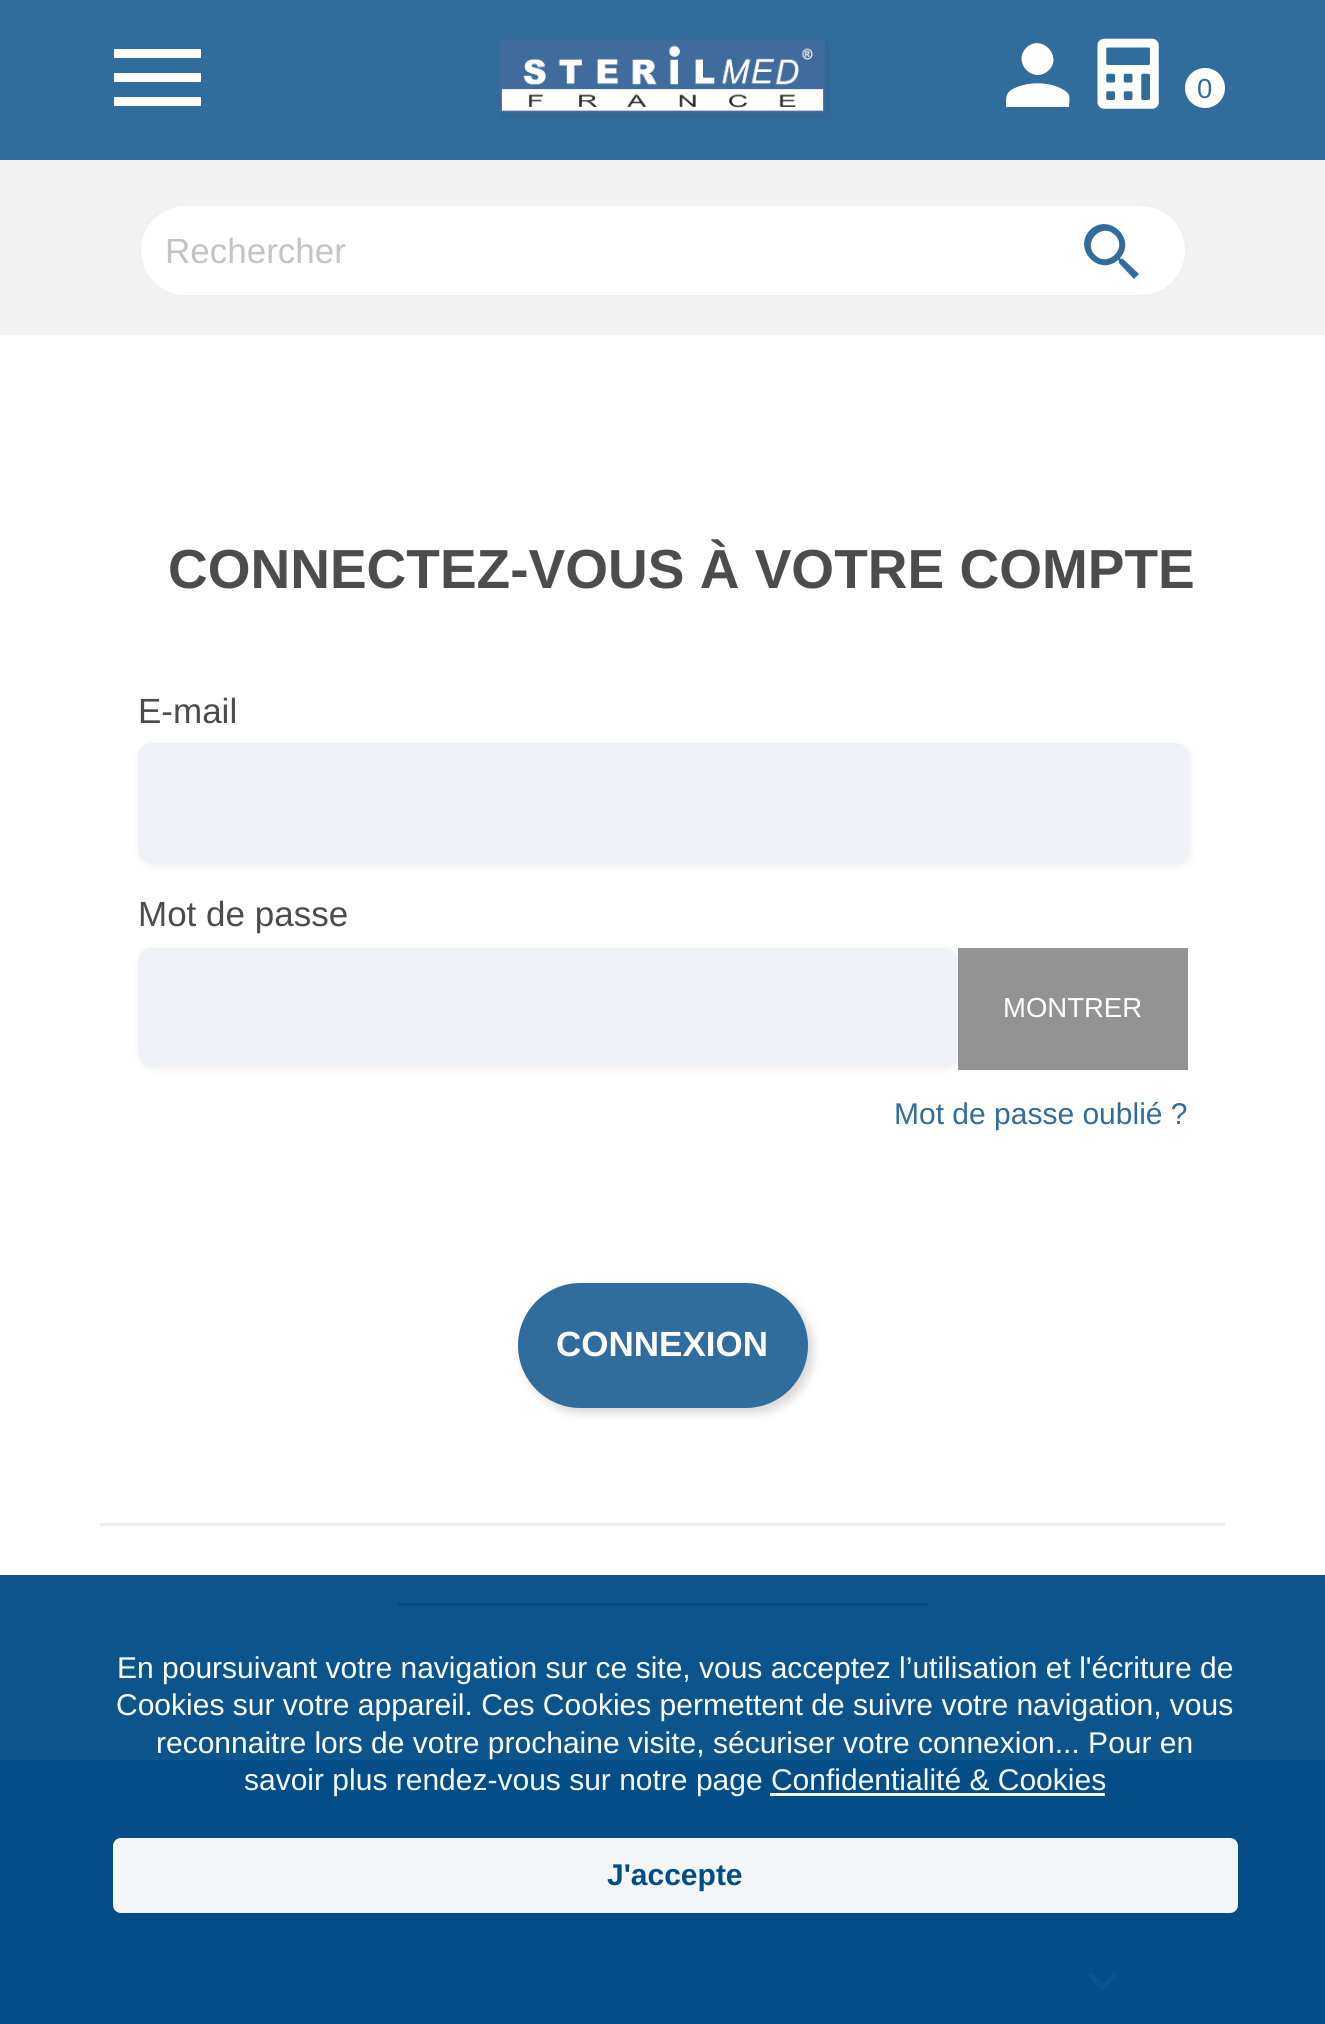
import math
import cairo

surface = cairo.ImageSurface(cairo.FORMAT_RGB24, 1325, 2024)
ctx = cairo.Context(surface)
options = cairo.FontOptions()
options.set_hint_metrics(cairo.HINT_METRICS_OFF)
options.set_hint_style(cairo.HINT_STYLE_NONE)
ctx.set_font_options(options)
ctx.set_miter_limit(4)


def round_rect(x, y, w, h, r):
    ctx.new_sub_path()
    for i, (u, v) in enumerate([(x + w - r, y + h - r), (x + r, y + h - r), (x + r, y + r), (x + w - r, y + r)]):
        ctx.arc(u, v, r, i * math.pi / 2, (i + 1) * math.pi / 2)
    ctx.close_path()


def shadow(x, y, w, h, r, blur, alpha):
    ctx.push_group_with_content(cairo.CONTENT_ALPHA)
    ctx.set_operator(cairo.OPERATOR_SOURCE)
    for i in range(15, -16, -2):
        e = blur * i / 6
        if min(w, h) + 2 * e > 0:
            ctx.set_source_rgba(0, 0, 0, alpha * math.erfc((i - 1) / 8.5) / 2)
            round_rect(x - e, y - e, w + 2 * e, h + 2 * e, max(0, min(r + e + blur * .6, min(w, h) / 2 + e)))
            ctx.fill()
    ctx.mask(ctx.pop_group())


def picture(path, x, y, w, h):
    ctx.save()
    ctx.set_source_surface(cairo.ImageSurface.create_from_png(path), x, y)
    ctx.rectangle(x, y, w, h)
    ctx.fill()
    ctx.restore()


ctx.set_source_rgb(1, 1, 1)
ctx.paint()
ctx.set_source_rgb(0.953, 0.953, 0.953)
ctx.rectangle(0, 160, 1325, 175)
ctx.fill()
ctx.set_source_rgb(0.188, 0.427, 0.616)
ctx.rectangle(0, 0, 1325, 160)
ctx.fill()
ctx.set_source_rgb(1, 1, 1)
ctx.new_path()
ctx.move_to(114, 49)
ctx.line_to(201, 49)
ctx.line_to(201, 58)
ctx.line_to(114, 58)
ctx.close_path()
ctx.move_to(114, 82)
ctx.line_to(114, 73)
ctx.line_to(201, 73)
ctx.line_to(201, 82)
ctx.close_path()
ctx.move_to(114, 106)
ctx.line_to(114, 97)
ctx.line_to(201, 97)
ctx.line_to(201, 106)
ctx.close_path()
ctx.fill()
ctx.set_source_rgb(0.188, 0.188, 0.188)
shadow(500, 40, 330, 78, 0, 5, 0.1)
picture("img1.png", 500, 40, 325, 73)
ctx.set_source_rgb(1, 1, 1)
ctx.new_path()
ctx.move_to(1017, 87)
ctx.curve_to(1030, 82, 1045, 82, 1058, 87)
ctx.curve_to(1062, 89, 1067, 91, 1069, 95)
ctx.curve_to(1070, 99, 1069, 103, 1069, 107)
ctx.line_to(1006, 107)
ctx.curve_to(1006, 96, 1005, 92, 1017, 87)
ctx.close_path()
ctx.move_to(1049, 70)
ctx.curve_to(1034, 85, 1012, 63, 1026, 48)
ctx.curve_to(1041, 33, 1063, 56, 1049, 70)
ctx.close_path()
ctx.fill()
picture("img2.png", 1097, 38, 62, 71)
ctx.arc(1205, 88, 20, 0, 2 * math.pi)
ctx.fill()
ctx.select_font_face("Liberation Sans")
ctx.set_font_size(27.5)
ctx.set_source_rgb(0.188, 0.427, 0.616)
ctx.move_to(1197, 98)
ctx.show_text("0")
ctx.set_source_rgb(1, 1, 1)
round_rect(139.5, 204.5, 1047, 92, 46)
ctx.fill_preserve()
ctx.set_source_rgb(0.945, 0.945, 0.945)
ctx.set_line_width(3)
ctx.stroke()
ctx.set_font_size(35)
ctx.set_source_rgb(0.769, 0.769, 0.769)
ctx.move_to(165, 263)
ctx.show_text("Rechercher")
ctx.set_source_rgb(0.188, 0.427, 0.616)
ctx.new_path()
ctx.move_to(1095, 255)
ctx.curve_to(1108, 268, 1128, 248, 1115, 235)
ctx.curve_to(1102, 222, 1082, 242, 1095, 255)
ctx.close_path()
ctx.move_to(1123, 259)
ctx.line_to(1139, 274)
ctx.line_to(1134, 279)
ctx.line_to(1119, 263)
ctx.line_to(1119, 261)
ctx.line_to(1118, 260)
ctx.curve_to(1099, 277, 1072, 249, 1090, 230)
ctx.curve_to(1109, 212, 1137, 239, 1120, 258)
ctx.line_to(1121, 259)
ctx.close_path()
ctx.fill()
ctx.select_font_face("Liberation Sans", cairo.FONT_SLANT_NORMAL, cairo.FONT_WEIGHT_BOLD)
ctx.set_font_size(55)
ctx.set_source_rgb(0.298, 0.298, 0.298)
ctx.move_to(168, 588)
ctx.show_text("CONNECTEZ-VOUS À VOTRE COMPTE")
ctx.select_font_face("Liberation Sans")
ctx.set_font_size(35)
ctx.move_to(138, 723)
ctx.show_text("E-mail")
ctx.set_source_rgb(0.188, 0.188, 0.188)
shadow(140, 745, 1050, 120, 13, 4, 0.1)
ctx.set_source_rgb(0.937, 0.953, 0.973)
round_rect(138, 743, 1050, 120, 13)
ctx.fill()
ctx.set_source_rgb(0.298, 0.298, 0.298)
ctx.move_to(138, 926)
ctx.show_text("Mot de passe")
ctx.set_source_rgb(0.188, 0.188, 0.188)
shadow(140, 950, 820, 118, 13, 4, 0.1)
ctx.set_source_rgb(0.937, 0.953, 0.973)
round_rect(138, 948, 820, 117, 13)
ctx.fill()
ctx.set_source_rgb(0.576, 0.576, 0.576)
ctx.rectangle(958, 948, 230, 122)
ctx.fill()
ctx.set_font_size(27.5)
ctx.set_source_rgb(1, 1, 1)
ctx.move_to(1003, 1017)
ctx.show_text("MONTRER")
ctx.set_font_size(30)
ctx.set_source_rgb(0.188, 0.427, 0.616)
ctx.move_to(894, 1124)
ctx.show_text("Mot de passe oublié ?")
ctx.set_source_rgb(0.188, 0.188, 0.188)
shadow(523, 1288, 290, 125, 62.5, 5, 0.2)
ctx.set_source_rgb(0.188, 0.427, 0.616)
round_rect(518, 1283, 290, 125, 62.5)
ctx.fill()
ctx.select_font_face("Liberation Sans", cairo.FONT_SLANT_NORMAL, cairo.FONT_WEIGHT_BOLD)
ctx.set_font_size(35)
ctx.set_source_rgb(1, 1, 1)
ctx.move_to(556, 1356)
ctx.show_text("CONNEXION")
ctx.set_source_rgb(0.922, 0.922, 0.922)
ctx.rectangle(100, 1523, 1125, 3)
ctx.fill()
ctx.set_source_rgb(0.298, 0.298, 0.298)
ctx.rectangle(398, 1603, 530, 3)
ctx.fill()
ctx.set_source_rgb(0.188, 0.427, 0.616)
ctx.rectangle(0, 1760, 1325, 264)
ctx.fill()
ctx.new_path()
ctx.move_to(162.5, 1911)
ctx.line_to(1162.5, 1911)
ctx.set_source_rgb(0.973, 0.973, 0.973)
ctx.set_line_width(2.5)
ctx.set_dash([7.5, 5.07])
ctx.stroke()
ctx.set_source_rgb(1, 1, 1)
ctx.new_path()
ctx.move_to(1091, 1857)
ctx.line_to(1102.5, 1868.5)
ctx.line_to(1114, 1857)
ctx.line_to(1117.5, 1860.5)
ctx.line_to(1102.5, 1875.5)
ctx.line_to(1087.5, 1860.5)
ctx.close_path()
ctx.fill()
ctx.new_path()
ctx.move_to(1091, 1972)
ctx.line_to(1102.5, 1983.5)
ctx.line_to(1114, 1972)
ctx.line_to(1117.5, 1975.5)
ctx.line_to(1102.5, 1990.5)
ctx.line_to(1087.5, 1975.5)
ctx.close_path()
ctx.fill()
ctx.set_source_rgba(0.012, 0.298, 0.529, 0.95)
ctx.rectangle(0, 1575, 1325, 449)
ctx.fill()
ctx.select_font_face("Liberation Sans")
ctx.set_font_size(30)
ctx.set_source_rgb(1, 1, 1)
ctx.move_to(117, 1678)
ctx.show_text("En poursuivant votre navigation sur ce site, vous acceptez l’utilisation et l'écriture de")
ctx.move_to(116, 1715)
ctx.show_text("Cookies sur votre appareil. Ces Cookies permettent de suivre votre navigation, vous")
ctx.move_to(156, 1753)
ctx.show_text("reconnaitre lors de votre prochaine visite, sécuriser votre connexion... Pour en")
ctx.set_source_rgb(0.961, 0.973, 0.98)
ctx.move_to(244, 1790)
ctx.show_text("savoir plus rendez-vous sur notre page Confidentialité & Cookies")
ctx.rectangle(770, 1793, 335, 3)
ctx.fill()
ctx.set_source_rgba(1, 1, 1, 0.95)
round_rect(113, 1838, 1125, 75, 8)
ctx.fill()
ctx.select_font_face("Liberation Sans", cairo.FONT_SLANT_NORMAL, cairo.FONT_WEIGHT_BOLD)
ctx.set_source_rgb(0.008, 0.302, 0.529)
ctx.move_to(607, 1885)
ctx.show_text("J'accepte")
surface.write_to_png("page.png")
